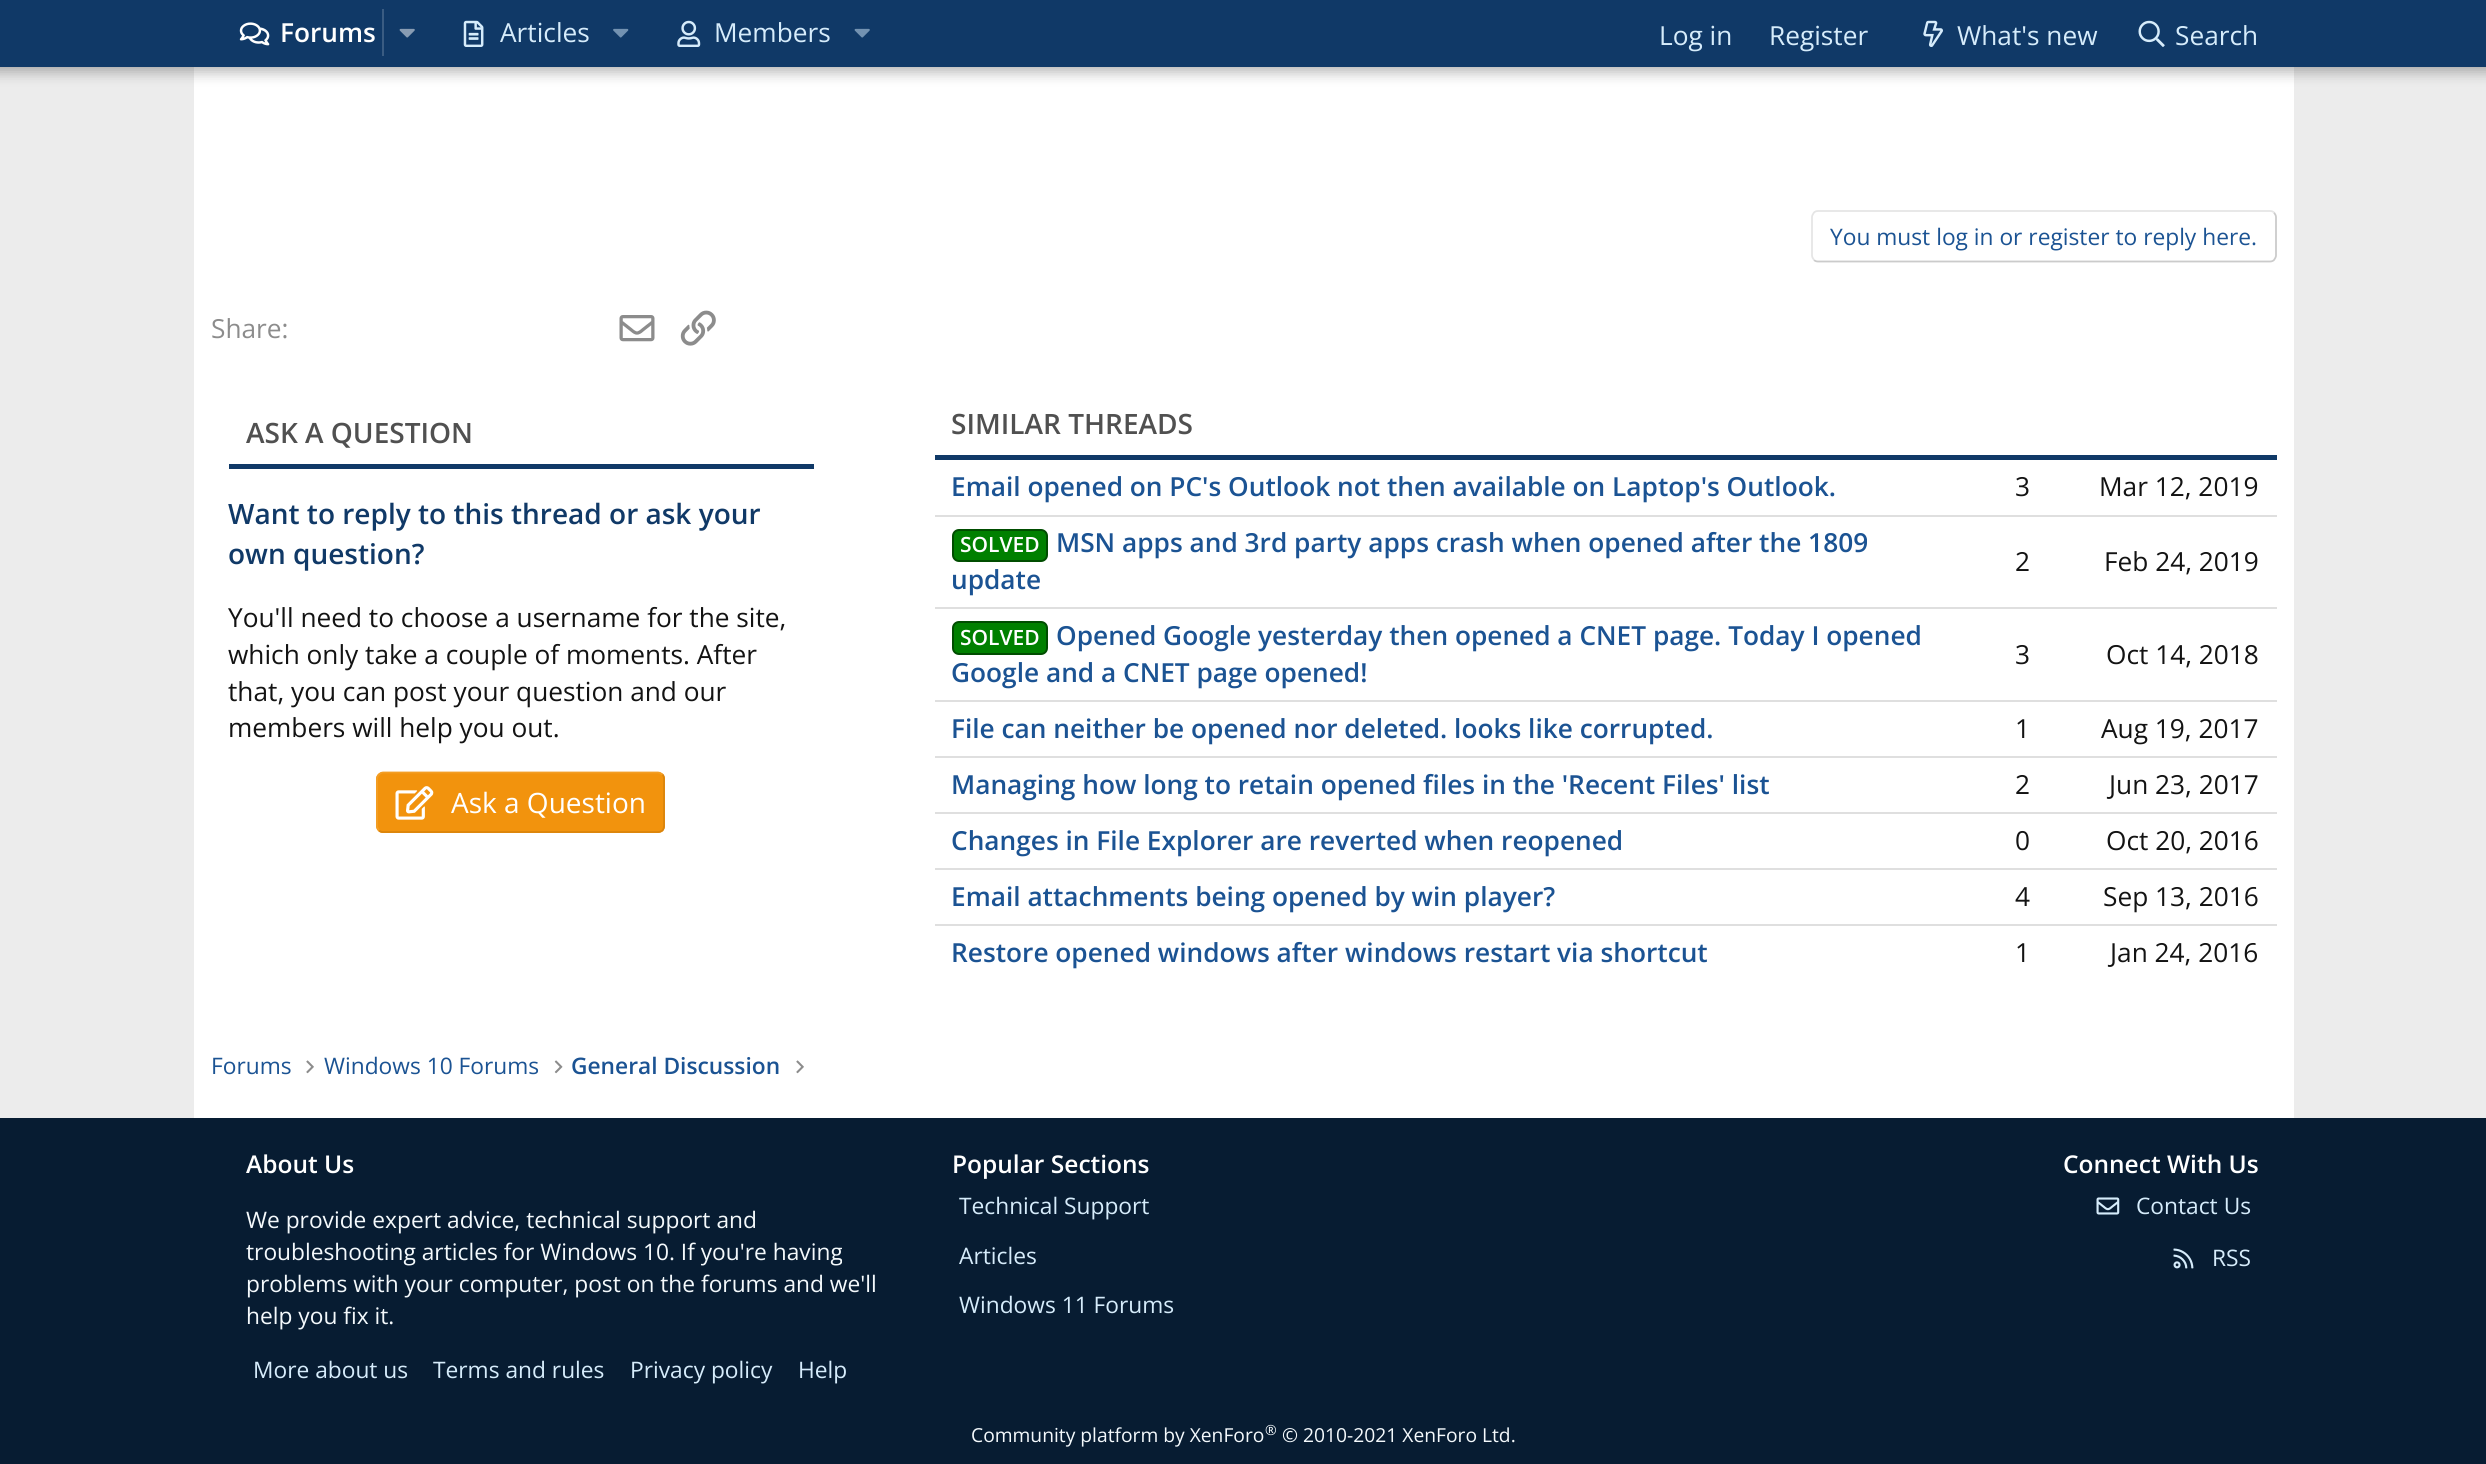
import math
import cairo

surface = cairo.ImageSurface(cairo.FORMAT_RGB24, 2486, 1464)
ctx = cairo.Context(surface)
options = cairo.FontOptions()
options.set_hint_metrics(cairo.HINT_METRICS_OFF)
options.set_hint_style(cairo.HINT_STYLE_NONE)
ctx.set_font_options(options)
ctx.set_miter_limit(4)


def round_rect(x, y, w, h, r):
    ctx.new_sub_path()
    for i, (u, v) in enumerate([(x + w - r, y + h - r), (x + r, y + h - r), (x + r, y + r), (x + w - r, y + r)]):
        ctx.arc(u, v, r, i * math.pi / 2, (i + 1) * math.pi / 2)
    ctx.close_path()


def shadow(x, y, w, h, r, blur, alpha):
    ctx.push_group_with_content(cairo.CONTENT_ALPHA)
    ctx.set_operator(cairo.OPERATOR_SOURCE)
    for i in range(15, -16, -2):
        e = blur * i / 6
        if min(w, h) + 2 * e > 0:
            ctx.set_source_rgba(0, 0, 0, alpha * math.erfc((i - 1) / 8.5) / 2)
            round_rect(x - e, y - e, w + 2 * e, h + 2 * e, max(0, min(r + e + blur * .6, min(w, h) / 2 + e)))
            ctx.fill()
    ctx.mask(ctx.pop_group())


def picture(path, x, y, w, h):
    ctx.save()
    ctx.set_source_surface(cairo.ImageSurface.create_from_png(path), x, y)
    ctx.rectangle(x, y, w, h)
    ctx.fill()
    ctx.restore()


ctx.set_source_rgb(0.925, 0.925, 0.925)
ctx.paint()
ctx.set_source_rgb(1, 1, 1)
ctx.rectangle(194, 67, 2100, 1051)
ctx.fill()
ctx.set_source_rgb(0, 0, 0)
shadow(-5, -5, 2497, 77, 0, 7, 0.3)
ctx.set_source_rgb(0.063, 0.224, 0.404)
ctx.rectangle(0, 0, 2486, 67)
ctx.fill()
picture("img1.png", 239, 22, 31, 24)
ctx.select_font_face("Open Sans SemiBold")
ctx.set_font_size(26.25)
ctx.set_source_rgb(1, 1, 1)
ctx.move_to(280, 42)
ctx.show_text("Forums")
ctx.set_source_rgb(0.227, 0.361, 0.51)
ctx.rectangle(382, 9, 2, 47)
ctx.fill()
picture("img2.png", 399, 28, 16, 10)
picture("img3.png", 463, 20, 21, 27)
ctx.select_font_face("Open Sans")
ctx.set_source_rgb(0.839, 0.925, 0.984)
ctx.move_to(500, 42)
ctx.show_text("Articles")
picture("img4.png", 613, 28, 16, 10)
picture("img5.png", 677, 20, 24, 27)
ctx.move_to(714, 42)
ctx.show_text("Members")
picture("img6.png", 854, 28, 16, 10)
ctx.move_to(1659, 45)
ctx.show_text("Log in")
ctx.move_to(1769, 45)
ctx.show_text("Register")
picture("img7.png", 1923, 20, 20, 27)
ctx.move_to(1957, 45)
ctx.show_text("What's new")
picture("img8.png", 2138, 20, 27, 27)
ctx.move_to(2175, 45)
ctx.show_text("Search")
ctx.new_path()
ctx.move_to(2274, 212.5)
ctx.curve_to(2275, 214, 2276, 215.5, 2276, 217)
ctx.line_to(2276, 255.5)
ctx.curve_to(2276, 257, 2275, 258.5, 2274, 260)
ctx.curve_to(2273, 261, 2271.5, 261.5, 2270, 261.5)
ctx.line_to(1818, 261.5)
ctx.curve_to(1816.5, 261.5, 1815, 261, 1814, 260)
ctx.set_source_rgb(0.796, 0.796, 0.796)
ctx.set_line_width(1.8)
ctx.stroke()
ctx.new_path()
ctx.move_to(1814, 260)
ctx.curve_to(1813, 258.5, 1812, 257, 1812, 255.5)
ctx.line_to(1812, 217)
ctx.curve_to(1812, 215.5, 1813, 214, 1814, 212.5)
ctx.curve_to(1815, 211.5, 1816.5, 211, 1818, 211)
ctx.line_to(2270, 211)
ctx.curve_to(2271.5, 211, 2273, 211.5, 2274, 212.5)
ctx.set_source_rgb(0.898, 0.898, 0.898)
ctx.stroke()
ctx.set_font_size(22.75)
ctx.set_source_rgb(0.106, 0.325, 0.576)
ctx.move_to(1830, 245)
ctx.show_text("You must log in or register to reply here.")
ctx.set_font_size(26.25)
ctx.set_source_rgb(0.549, 0.549, 0.549)
ctx.move_to(211, 338)
ctx.show_text("Share:")
picture("img9.png", 619, 315, 36, 27)
picture("img10.png", 680, 310, 36, 36)
ctx.set_source_rgb(0.063, 0.224, 0.404)
ctx.rectangle(229, 464, 585, 5)
ctx.fill()
ctx.select_font_face("Open Sans SemiBold")
ctx.set_font_size(28)
ctx.set_source_rgb(0.314, 0.314, 0.314)
ctx.move_to(246, 443)
ctx.show_text("ASK A QUESTION")
ctx.set_source_rgb(0.063, 0.224, 0.404)
ctx.move_to(228, 524)
ctx.show_text("Want to reply to this thread or ask your")
ctx.move_to(228, 564)
ctx.show_text("own question?")
ctx.select_font_face("Open Sans")
ctx.set_font_size(26.25)
ctx.set_source_rgb(0.078, 0.078, 0.078)
ctx.move_to(228, 627)
ctx.show_text("You'll need to choose a username for the site,")
ctx.move_to(228, 664)
ctx.show_text("which only take a couple of moments. After")
ctx.move_to(228, 701)
ctx.show_text("that, you can post your question and our")
ctx.move_to(228, 737)
ctx.show_text("members will help you out.")
ctx.set_source_rgb(0.949, 0.576, 0.051)
round_rect(376, 772, 289, 61, 7)
ctx.fill()
ctx.new_path()
ctx.move_to(662.5, 774.5)
ctx.curve_to(663.5, 775.5, 664, 777, 664, 779)
ctx.line_to(664, 826)
ctx.curve_to(664, 827.5, 663.5, 829, 662.5, 830.5)
ctx.curve_to(661, 831.5, 659.5, 832, 658, 832)
ctx.line_to(383, 832)
ctx.curve_to(381.5, 832, 380, 831.5, 379, 830.5)
ctx.set_source_rgb(0.855, 0.518, 0.047)
ctx.stroke()
ctx.new_path()
ctx.move_to(379, 830.5)
ctx.curve_to(378, 829, 377, 827.5, 377, 826)
ctx.line_to(377, 779)
ctx.curve_to(377, 777, 378, 775.5, 379, 774.5)
ctx.curve_to(380, 773.5, 381.5, 772.5, 383, 772.5)
ctx.line_to(658, 772.5)
ctx.curve_to(659.5, 772.5, 661, 773.5, 662.5, 774.5)
ctx.set_source_rgb(0.953, 0.62, 0.145)
ctx.stroke()
picture("img11.png", 395, 786, 39, 34)
ctx.set_font_size(28)
ctx.set_source_rgb(1, 1, 1)
ctx.move_to(451, 813)
ctx.show_text("Ask a Question")
ctx.set_source_rgb(0.063, 0.224, 0.404)
ctx.rectangle(935, 455, 1342, 5)
ctx.fill()
ctx.select_font_face("Open Sans SemiBold")
ctx.set_source_rgb(0.314, 0.314, 0.314)
ctx.move_to(951, 434)
ctx.show_text("SIMILAR THREADS")
ctx.set_source_rgb(0.875, 0.875, 0.875)
ctx.rectangle(935, 515, 1342, 2)
ctx.fill()
ctx.set_font_size(26.25)
ctx.set_source_rgb(0.106, 0.325, 0.576)
ctx.move_to(951, 496)
ctx.show_text("Email opened on PC's Outlook not then available on Laptop's Outlook.")
ctx.select_font_face("Open Sans")
ctx.set_source_rgb(0.078, 0.078, 0.078)
ctx.move_to(2015, 496)
ctx.show_text("3")
ctx.move_to(2099, 496)
ctx.show_text("Mar 12, 2019")
ctx.set_source_rgb(0.875, 0.875, 0.875)
ctx.rectangle(935, 607, 1342, 2)
ctx.fill()
ctx.set_source_rgb(0, 0.502, 0)
round_rect(953, 530, 94, 31, 6)
ctx.fill_preserve()
ctx.set_source_rgb(0, 0.302, 0)
ctx.set_line_width(2)
ctx.stroke()
ctx.select_font_face("Open Sans SemiBold")
ctx.set_font_size(21)
ctx.set_source_rgb(1, 1, 1)
ctx.move_to(960, 552)
ctx.show_text("SOLVED")
ctx.set_font_size(26.25)
ctx.set_source_rgb(0.106, 0.325, 0.576)
ctx.move_to(1056, 552)
ctx.show_text("MSN apps and 3rd party apps crash when opened after the 1809")
ctx.move_to(951, 589)
ctx.show_text("update")
ctx.select_font_face("Open Sans")
ctx.set_source_rgb(0.078, 0.078, 0.078)
ctx.move_to(2015, 571)
ctx.show_text("2")
ctx.move_to(2104, 571)
ctx.show_text("Feb 24, 2019")
ctx.set_source_rgb(0.875, 0.875, 0.875)
ctx.rectangle(935, 700, 1342, 2)
ctx.fill()
ctx.set_source_rgb(0, 0.502, 0)
round_rect(953, 622, 94, 32, 6)
ctx.fill_preserve()
ctx.set_source_rgb(0, 0.302, 0)
ctx.stroke()
ctx.select_font_face("Open Sans SemiBold")
ctx.set_font_size(21)
ctx.set_source_rgb(1, 1, 1)
ctx.move_to(960, 645)
ctx.show_text("SOLVED")
ctx.set_font_size(26.25)
ctx.set_source_rgb(0.106, 0.325, 0.576)
ctx.move_to(1056, 645)
ctx.show_text("Opened Google yesterday then opened a CNET page. Today I opened")
ctx.move_to(951, 682)
ctx.show_text("Google and a CNET page opened!")
ctx.select_font_face("Open Sans")
ctx.set_source_rgb(0.078, 0.078, 0.078)
ctx.move_to(2015, 664)
ctx.show_text("3")
ctx.move_to(2106, 664)
ctx.show_text("Oct 14, 2018")
ctx.set_source_rgb(0.875, 0.875, 0.875)
ctx.rectangle(935, 756, 1342, 2)
ctx.fill()
ctx.select_font_face("Open Sans SemiBold")
ctx.set_source_rgb(0.106, 0.325, 0.576)
ctx.move_to(951, 738)
ctx.show_text("File can neither be opened nor deleted. looks like corrupted.")
ctx.select_font_face("Open Sans")
ctx.set_source_rgb(0.078, 0.078, 0.078)
ctx.move_to(2015, 738)
ctx.show_text("1")
ctx.move_to(2101, 738)
ctx.show_text("Aug 19, 2017")
ctx.set_source_rgb(0.875, 0.875, 0.875)
ctx.rectangle(935, 812, 1342, 2)
ctx.fill()
ctx.select_font_face("Open Sans SemiBold")
ctx.set_source_rgb(0.106, 0.325, 0.576)
ctx.move_to(951, 794)
ctx.show_text("Managing how long to retain opened files in the 'Recent Files' list")
ctx.select_font_face("Open Sans")
ctx.set_source_rgb(0.078, 0.078, 0.078)
ctx.move_to(2015, 794)
ctx.show_text("2")
ctx.move_to(2109, 794)
ctx.show_text("Jun 23, 2017")
ctx.set_source_rgb(0.875, 0.875, 0.875)
ctx.rectangle(935, 868, 1342, 2)
ctx.fill()
ctx.select_font_face("Open Sans SemiBold")
ctx.set_source_rgb(0.106, 0.325, 0.576)
ctx.move_to(951, 850)
ctx.show_text("Changes in File Explorer are reverted when reopened")
ctx.select_font_face("Open Sans")
ctx.set_source_rgb(0.078, 0.078, 0.078)
ctx.move_to(2015, 850)
ctx.show_text("0")
ctx.move_to(2106, 850)
ctx.show_text("Oct 20, 2016")
ctx.set_source_rgb(0.875, 0.875, 0.875)
ctx.rectangle(935, 924, 1342, 2)
ctx.fill()
ctx.select_font_face("Open Sans SemiBold")
ctx.set_source_rgb(0.106, 0.325, 0.576)
ctx.move_to(951, 906)
ctx.show_text("Email attachments being opened by win player?")
ctx.select_font_face("Open Sans")
ctx.set_source_rgb(0.078, 0.078, 0.078)
ctx.move_to(2015, 906)
ctx.show_text("4")
ctx.move_to(2103, 906)
ctx.show_text("Sep 13, 2016")
ctx.select_font_face("Open Sans SemiBold")
ctx.set_source_rgb(0.106, 0.325, 0.576)
ctx.move_to(951, 962)
ctx.show_text("Restore opened windows after windows restart via shortcut")
ctx.select_font_face("Open Sans")
ctx.set_source_rgb(0.078, 0.078, 0.078)
ctx.move_to(2015, 962)
ctx.show_text("1")
ctx.move_to(2110, 962)
ctx.show_text("Jan 24, 2016")
ctx.set_font_size(22.75)
ctx.set_source_rgb(0.106, 0.325, 0.576)
ctx.move_to(211, 1074)
ctx.show_text("Forums")
picture("img12.png", 306, 1060, 8, 14)
ctx.move_to(324, 1074)
ctx.show_text("Windows 10 Forums")
picture("img13.png", 554, 1060, 9, 14)
ctx.select_font_face("Open Sans SemiBold")
ctx.move_to(571, 1074)
ctx.show_text("General Discussion")
picture("img12.png", 796, 1060, 8, 14)
ctx.set_source_rgb(0.031, 0.11, 0.196)
ctx.rectangle(0, 1118, 2486, 346)
ctx.fill()
ctx.set_font_size(24.5)
ctx.set_source_rgb(1, 1, 1)
ctx.move_to(246, 1173)
ctx.show_text("About Us")
ctx.select_font_face("Open Sans")
ctx.set_font_size(22.75)
ctx.set_source_rgb(0.957, 0.976, 0.988)
ctx.move_to(246, 1228)
ctx.show_text("We provide expert advice, technical support and")
ctx.move_to(246, 1260)
ctx.show_text("troubleshooting articles for Windows 10. If you're having")
ctx.move_to(246, 1292)
ctx.show_text("problems with your computer, post on the forums and we'll")
ctx.move_to(246, 1324)
ctx.show_text("help you fix it.")
ctx.set_source_rgb(0.839, 0.925, 0.984)
ctx.move_to(253, 1378)
ctx.show_text("More about us")
ctx.move_to(433, 1378)
ctx.show_text("Terms and rules")
ctx.move_to(630, 1378)
ctx.show_text("Privacy policy")
ctx.move_to(798, 1378)
ctx.show_text("Help")
ctx.select_font_face("Open Sans SemiBold")
ctx.set_font_size(24.5)
ctx.set_source_rgb(1, 1, 1)
ctx.move_to(952, 1173)
ctx.show_text("Popular Sections")
ctx.select_font_face("Open Sans")
ctx.set_font_size(22.75)
ctx.set_source_rgb(0.839, 0.925, 0.984)
ctx.move_to(959, 1214)
ctx.show_text("Technical Support")
ctx.move_to(959, 1264)
ctx.show_text("Articles")
ctx.move_to(959, 1313)
ctx.show_text("Windows 11 Forums")
ctx.select_font_face("Open Sans SemiBold")
ctx.set_font_size(24.5)
ctx.set_source_rgb(1, 1, 1)
ctx.move_to(2063, 1173)
ctx.show_text("Connect With Us")
picture("img14.png", 2096, 1197, 24, 18)
ctx.select_font_face("Open Sans")
ctx.set_font_size(22.75)
ctx.set_source_rgb(0.839, 0.925, 0.984)
ctx.move_to(2136, 1214)
ctx.show_text("Contact Us")
picture("img15.png", 2173, 1248, 21, 21)
ctx.move_to(2212, 1266)
ctx.show_text("RSS")
ctx.set_font_size(19.25)
ctx.set_source_rgb(0.957, 0.976, 0.988)
ctx.move_to(971, 1442)
ctx.show_text("Community platform by XenForo")
ctx.set_font_size(14)
ctx.move_to(1265, 1435)
ctx.show_text("®")
ctx.set_font_size(19.25)
ctx.move_to(1282, 1442)
ctx.show_text("© 2010-2021 XenForo Ltd.")
surface.write_to_png("page.png")
